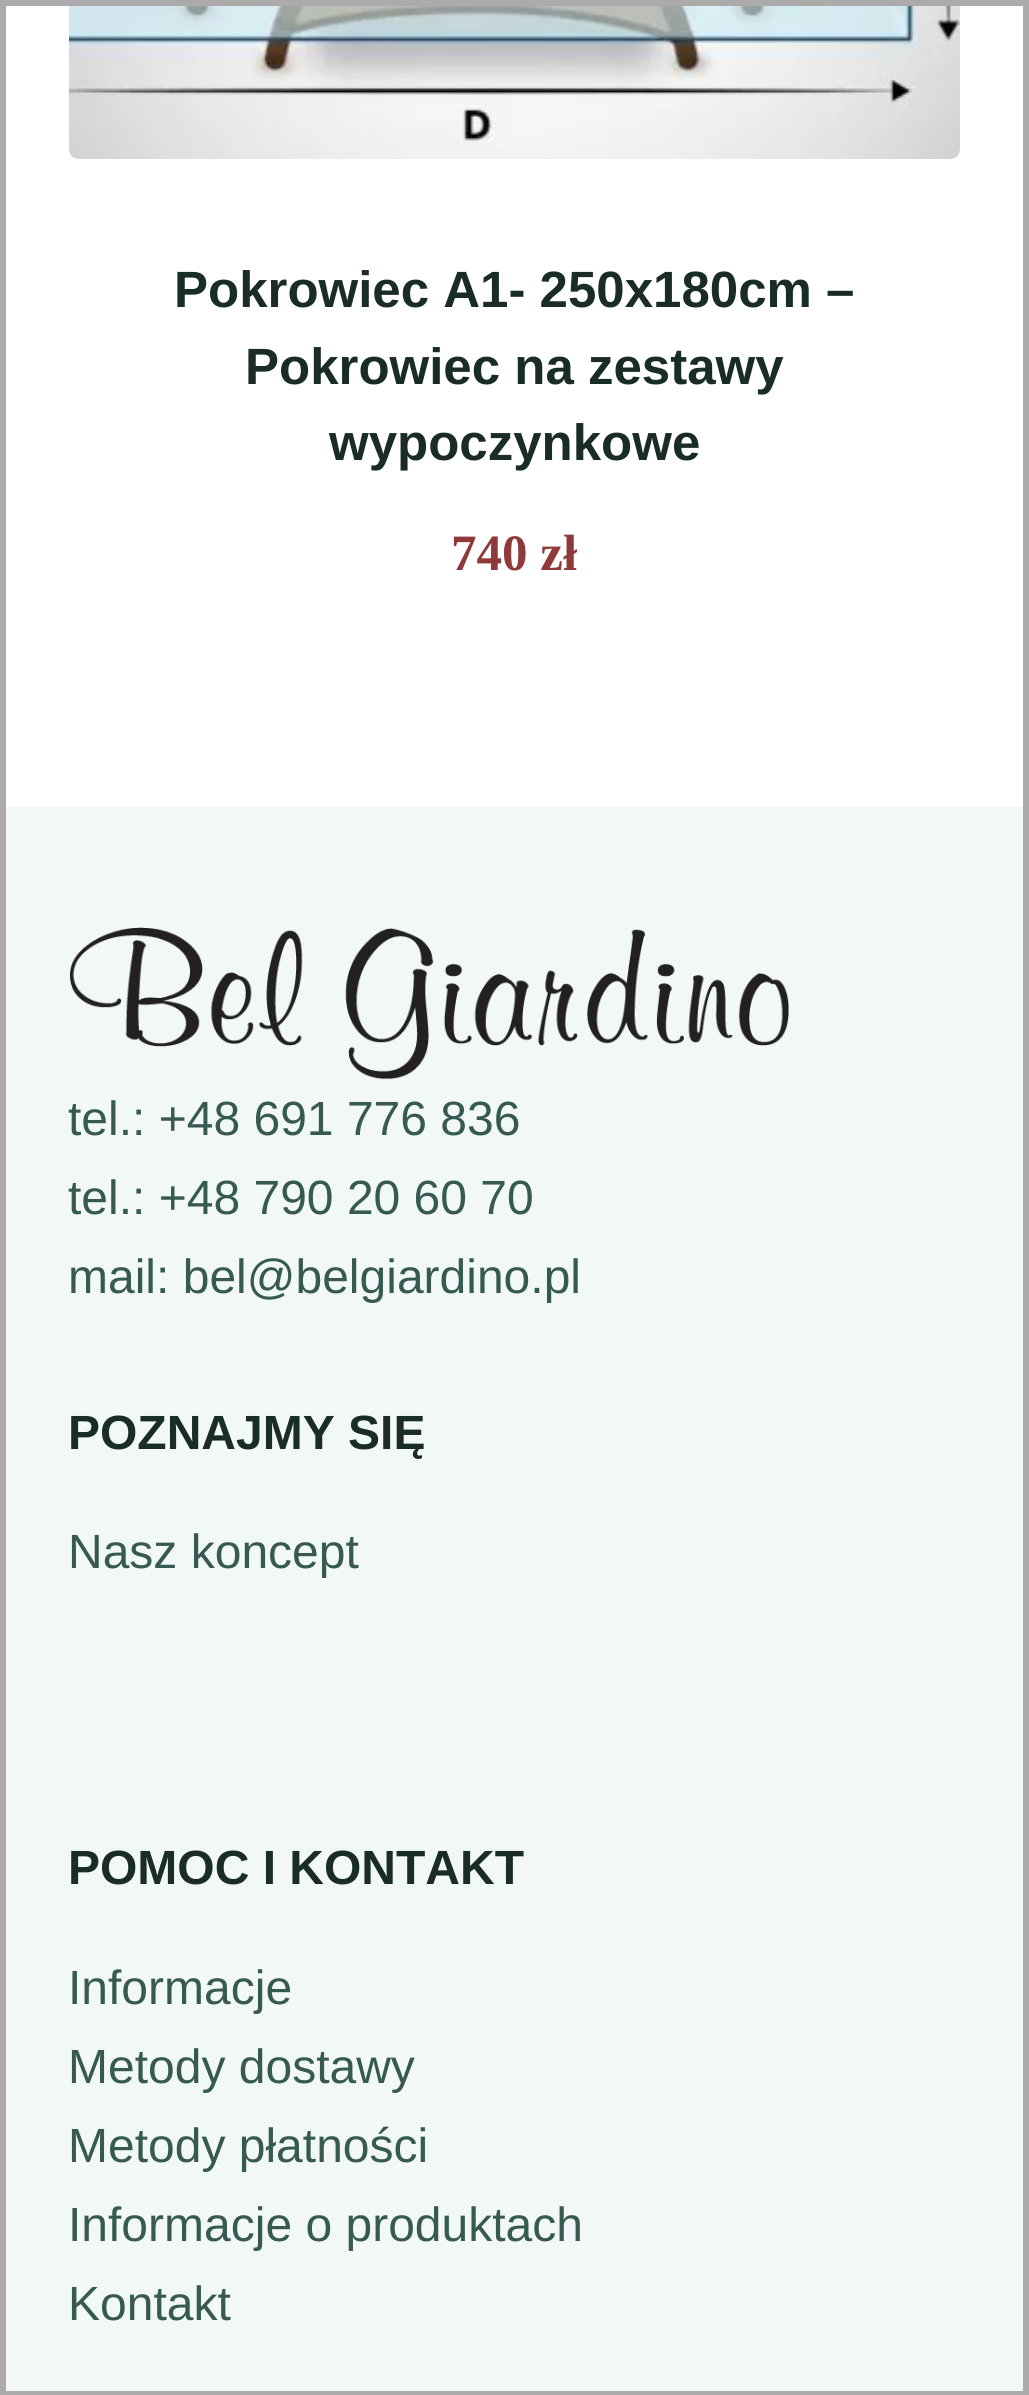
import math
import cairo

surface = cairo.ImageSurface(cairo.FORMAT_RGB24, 1029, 2395)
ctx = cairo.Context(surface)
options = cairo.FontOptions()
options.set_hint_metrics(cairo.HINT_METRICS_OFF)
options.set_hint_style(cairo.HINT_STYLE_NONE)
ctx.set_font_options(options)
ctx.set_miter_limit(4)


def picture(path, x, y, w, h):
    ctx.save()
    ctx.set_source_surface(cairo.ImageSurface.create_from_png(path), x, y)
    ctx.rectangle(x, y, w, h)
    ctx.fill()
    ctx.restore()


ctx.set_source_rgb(1, 1, 1)
ctx.paint()
ctx.rectangle(3, -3, 1023, 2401)
ctx.set_source_rgb(0.675, 0.667, 0.667)
ctx.set_line_width(6)
ctx.stroke()
ctx.rectangle(0, 0, 1029, 6)
ctx.fill()
picture("img1.png", 69, 6, 891, 153)
ctx.select_font_face("Liberation Sans", cairo.FONT_SLANT_NORMAL, cairo.FONT_WEIGHT_BOLD)
ctx.set_font_size(51)
ctx.set_source_rgb(0.098, 0.173, 0.153)
ctx.move_to(174, 307)
ctx.show_text("Pokrowiec A1- 250x180cm –")
ctx.move_to(245, 384)
ctx.show_text("Pokrowiec na zestawy")
ctx.move_to(329, 460)
ctx.show_text("wypoczynkowe")
ctx.select_font_face("Liberation Serif", cairo.FONT_SLANT_NORMAL, cairo.FONT_WEIGHT_BOLD)
ctx.set_source_rgb(0.561, 0.227, 0.227)
ctx.move_to(451, 570)
ctx.show_text("740 zł")
ctx.set_source_rgb(0.949, 0.969, 0.965)
ctx.rectangle(6, 807, 1017, 1584)
ctx.fill()
picture("img2.png", 70, 927, 719, 153)
ctx.select_font_face("Liberation Sans")
ctx.set_font_size(48)
ctx.set_source_rgb(0.212, 0.349, 0.318)
ctx.move_to(68, 1135)
ctx.show_text("tel.: +48 691 776 836")
ctx.move_to(68, 1214)
ctx.show_text("tel.: +48 790 20 60 70")
ctx.move_to(68, 1293)
ctx.show_text("mail: bel@belgiardino.pl")
ctx.select_font_face("Liberation Sans", cairo.FONT_SLANT_NORMAL, cairo.FONT_WEIGHT_BOLD)
ctx.set_source_rgb(0.098, 0.173, 0.153)
ctx.move_to(68, 1449)
ctx.show_text("POZNAJMY SIĘ")
ctx.select_font_face("Liberation Sans")
ctx.set_source_rgb(0.212, 0.349, 0.318)
ctx.move_to(68, 1568)
ctx.show_text("Nasz koncept")
ctx.select_font_face("Liberation Sans", cairo.FONT_SLANT_NORMAL, cairo.FONT_WEIGHT_BOLD)
ctx.set_source_rgb(0.098, 0.173, 0.153)
ctx.move_to(68, 1884)
ctx.show_text("POMOC I KONTAKT")
ctx.select_font_face("Liberation Sans")
ctx.set_source_rgb(0.212, 0.349, 0.318)
ctx.move_to(68, 2004)
ctx.show_text("Informacje")
ctx.move_to(68, 2083)
ctx.show_text("Metody dostawy")
ctx.move_to(68, 2162)
ctx.show_text("Metody płatności")
ctx.move_to(68, 2241)
ctx.show_text("Informacje o produktach")
ctx.move_to(68, 2320)
ctx.show_text("Kontakt")
ctx.set_source_rgb(0.675, 0.667, 0.667)
ctx.rectangle(0, 2391, 1029, 4)
ctx.fill()
surface.write_to_png("page.png")
